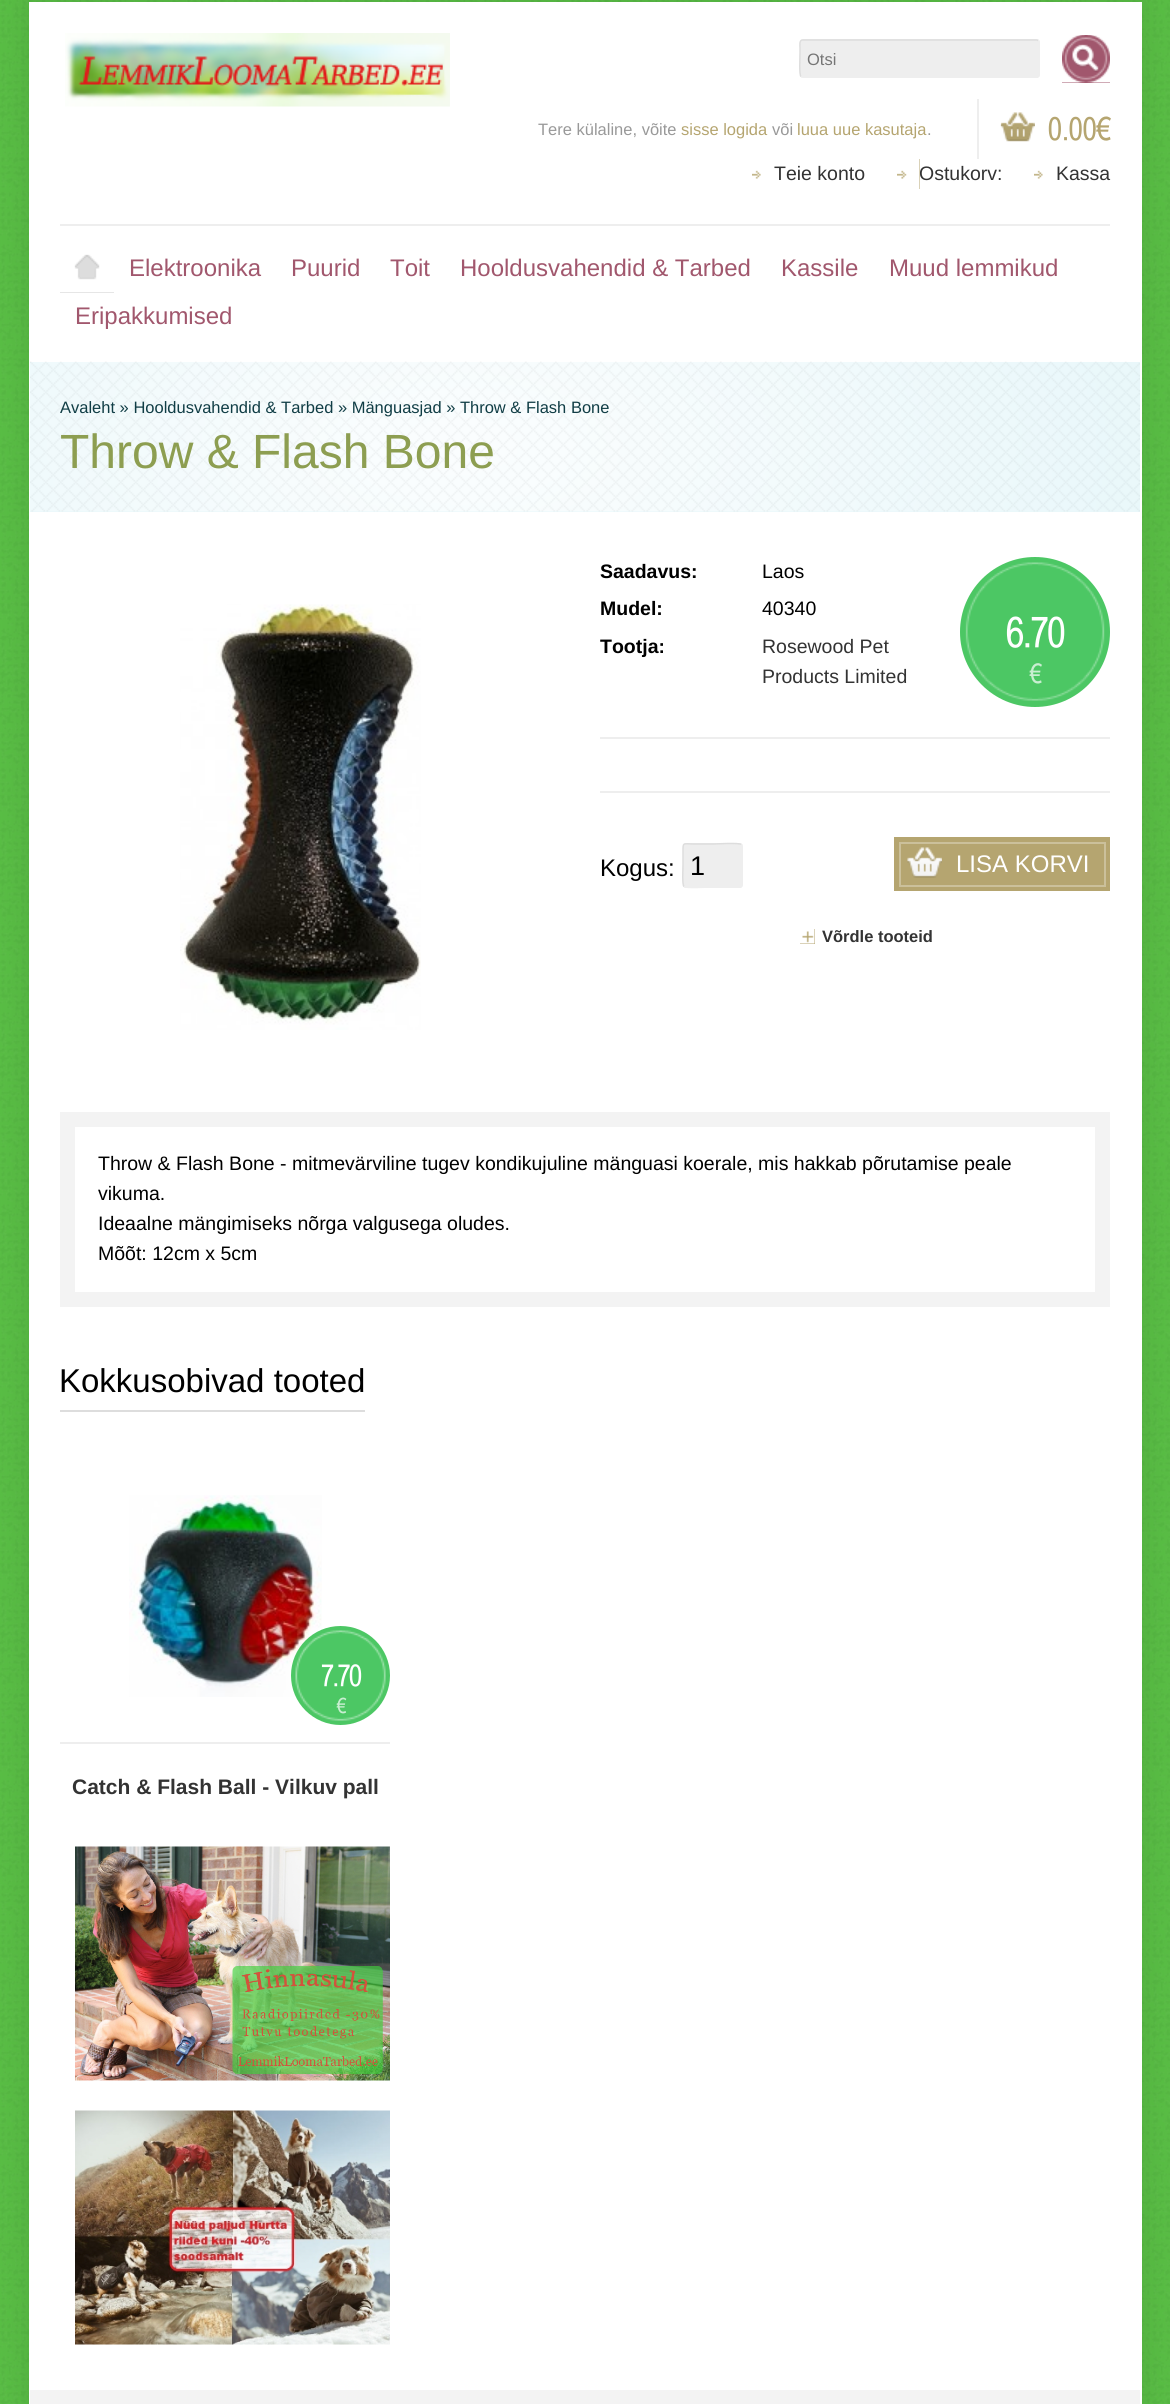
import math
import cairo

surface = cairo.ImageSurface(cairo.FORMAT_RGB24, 1170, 2404)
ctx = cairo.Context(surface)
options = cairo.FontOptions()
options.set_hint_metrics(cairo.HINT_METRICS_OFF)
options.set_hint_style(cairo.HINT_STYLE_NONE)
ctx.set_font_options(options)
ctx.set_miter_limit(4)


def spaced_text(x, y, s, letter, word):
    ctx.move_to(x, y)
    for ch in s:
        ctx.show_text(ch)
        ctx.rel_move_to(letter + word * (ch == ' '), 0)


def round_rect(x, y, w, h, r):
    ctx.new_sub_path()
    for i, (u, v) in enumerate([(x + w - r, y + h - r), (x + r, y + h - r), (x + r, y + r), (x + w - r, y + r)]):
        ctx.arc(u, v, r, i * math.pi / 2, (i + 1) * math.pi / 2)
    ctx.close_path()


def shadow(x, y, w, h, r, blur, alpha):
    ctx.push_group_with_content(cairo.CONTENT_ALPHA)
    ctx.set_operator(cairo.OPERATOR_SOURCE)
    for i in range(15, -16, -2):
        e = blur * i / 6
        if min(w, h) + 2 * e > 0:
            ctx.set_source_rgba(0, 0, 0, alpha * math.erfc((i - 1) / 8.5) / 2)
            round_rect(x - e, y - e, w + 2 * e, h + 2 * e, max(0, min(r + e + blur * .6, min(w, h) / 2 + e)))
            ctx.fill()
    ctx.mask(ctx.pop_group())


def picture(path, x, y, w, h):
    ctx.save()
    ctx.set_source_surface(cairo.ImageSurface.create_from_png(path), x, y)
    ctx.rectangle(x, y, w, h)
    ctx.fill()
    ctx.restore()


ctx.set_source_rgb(0.345, 0.741, 0.267)
ctx.paint()
picture("img1.png", 0, 0, 1170, 2404)
ctx.set_source_rgb(0, 0, 0)
shadow(29, 2, 1113, 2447, 0, 15, 0.1)
ctx.set_source_rgb(1, 1, 1)
ctx.rectangle(29, 2, 1113, 2402)
ctx.fill()
picture("img2.png", 65, 33, 385, 74)
ctx.set_source_rgb(0.933, 0.933, 0.933)
round_rect(800, 39, 240, 39, 3)
ctx.fill()
ctx.new_path()
ctx.move_to(1038, 40.5)
ctx.curve_to(1040, 42, 1039, 60.5, 1039, 64)
ctx.line_to(1039, 69.5)
ctx.curve_to(1039, 71, 1040, 77, 1036.5, 77)
ctx.line_to(802.5, 77)
ctx.line_to(801, 76.5)
ctx.set_line_width(1.5)
ctx.stroke()
ctx.new_path()
ctx.move_to(801, 76.5)
ctx.curve_to(799, 75, 800, 56.5, 800, 53)
ctx.line_to(800, 47.5)
ctx.curve_to(800, 46, 799, 40, 802.5, 40)
ctx.line_to(1036.5, 40)
ctx.line_to(1038, 40.5)
ctx.set_source_rgb(0.867, 0.867, 0.867)
ctx.stroke()
ctx.select_font_face("Liberation Sans")
ctx.set_font_size(16.5)
ctx.set_source_rgb(0.459, 0.459, 0.459)
ctx.move_to(807, 65)
ctx.show_text("Otsi")
ctx.set_source_rgb(0.631, 0.341, 0.427)
ctx.rectangle(1062, 35, 48, 48)
ctx.fill()
picture("img3.png", 1062, 35, 48, 48)
ctx.set_source_rgb(0.6, 0.6, 0.6)
ctx.move_to(538, 135)
ctx.show_text("Tere külaline, võite")
ctx.set_source_rgb(0.71, 0.647, 0.439)
ctx.move_to(681, 135)
ctx.show_text("sisse logida")
ctx.set_source_rgb(0.6, 0.6, 0.6)
ctx.move_to(772, 135)
ctx.show_text("või")
ctx.set_source_rgb(0.71, 0.647, 0.439)
ctx.move_to(797, 135)
ctx.show_text("luua uue kasutaja")
ctx.set_source_rgb(0.6, 0.6, 0.6)
ctx.move_to(927, 135)
ctx.show_text(".")
ctx.set_source_rgb(0.933, 0.933, 0.933)
ctx.rectangle(977, 99, 2, 60)
ctx.fill()
ctx.set_source_rgb(0.71, 0.647, 0.439)
ctx.rectangle(1001, 112, 34, 30)
ctx.fill()
picture("img4.png", 1000, 110, 35, 34)
ctx.select_font_face("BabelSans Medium")
ctx.set_font_size(32)
ctx.move_to(1048, 140)
ctx.show_text("0.00€")
ctx.rectangle(752, 170, 9, 9)
ctx.fill()
picture("img5.png", 752, 159, 22, 30)
ctx.select_font_face("Liberation Sans")
ctx.set_font_size(19.5)
ctx.set_source_rgb(0.2, 0.2, 0.2)
ctx.move_to(774, 180)
ctx.show_text("Teie konto")
ctx.move_to(919, 180)
ctx.show_text("Ostukorv:")
ctx.set_source_rgb(0.71, 0.647, 0.439)
ctx.rectangle(897, 159, 23, 30)
ctx.fill()
picture("img6.png", 897, 159, 23, 30)
ctx.rectangle(1034, 170, 9, 9)
ctx.fill()
picture("img7.png", 1034, 159, 22, 30)
ctx.set_source_rgb(0.2, 0.2, 0.2)
ctx.move_to(1056, 180)
ctx.show_text("Kassa")
ctx.set_source_rgb(0.933, 0.933, 0.933)
ctx.rectangle(60, 224, 1050, 2)
ctx.fill()
ctx.set_source_rgb(0.867, 0.867, 0.867)
ctx.rectangle(60, 254, 54, 39)
ctx.fill()
picture("img8.png", 60, 245, 54, 48)
ctx.set_font_size(24)
ctx.set_source_rgb(0.631, 0.341, 0.427)
ctx.move_to(129, 276)
ctx.show_text("Elektroonika")
ctx.move_to(291, 276)
ctx.show_text("Puurid")
ctx.move_to(390, 276)
ctx.show_text("Toit")
ctx.move_to(460, 276)
ctx.show_text("Hooldusvahendid & Tarbed")
ctx.move_to(781, 276)
ctx.show_text("Kassile")
ctx.move_to(889, 276)
ctx.show_text("Muud lemmikud")
ctx.move_to(75, 324)
ctx.show_text("Eripakkumised")
ctx.set_source_rgb(0.91, 0.965, 0.98)
ctx.rectangle(30, 362, 1110, 150)
ctx.fill()
picture("img9.png", 30, 361, 1110, 151)
ctx.set_font_size(16.5)
ctx.set_source_rgb(0.063, 0.239, 0.271)
ctx.move_to(60, 413)
ctx.show_text("Avaleht » Hooldusvahendid & Tarbed » Mänguasjad » Throw & Flash Bone")
ctx.set_font_size(48)
ctx.set_source_rgb(0.553, 0.62, 0.318)
ctx.move_to(60, 468)
ctx.show_text("Throw & Flash Bone")
picture("img10.png", 180, 604, 241, 426)
ctx.select_font_face("Liberation Sans", cairo.FONT_SLANT_NORMAL, cairo.FONT_WEIGHT_BOLD)
ctx.set_font_size(19.5)
ctx.set_source_rgb(0, 0, 0)
ctx.move_to(600, 578)
ctx.show_text("Saadavus:")
ctx.select_font_face("Liberation Sans")
ctx.move_to(762, 578)
ctx.show_text("Laos")
ctx.select_font_face("Liberation Sans", cairo.FONT_SLANT_NORMAL, cairo.FONT_WEIGHT_BOLD)
ctx.move_to(600, 615)
ctx.show_text("Mudel:")
ctx.select_font_face("Liberation Sans")
ctx.move_to(762, 615)
ctx.show_text("40340")
ctx.select_font_face("Liberation Sans", cairo.FONT_SLANT_NORMAL, cairo.FONT_WEIGHT_BOLD)
ctx.move_to(600, 653)
ctx.show_text("Tootja:")
ctx.select_font_face("Liberation Sans")
ctx.set_source_rgb(0.2, 0.2, 0.2)
ctx.move_to(762, 653)
ctx.show_text("Rosewood Pet")
ctx.move_to(762, 683)
ctx.show_text("Products Limited")
ctx.set_source_rgb(0.933, 0.933, 0.933)
ctx.rectangle(600, 737, 510, 2)
ctx.fill()
ctx.rectangle(600, 791, 510, 2)
ctx.fill()
ctx.set_font_size(24)
ctx.set_source_rgb(0, 0, 0)
ctx.move_to(600, 876)
ctx.show_text("Kogus:")
ctx.set_source_rgb(0.933, 0.933, 0.933)
round_rect(683, 843, 60, 45, 3)
ctx.fill()
ctx.new_path()
ctx.move_to(741, 844.5)
ctx.curve_to(743, 846, 742, 862.5, 742, 865.5)
ctx.line_to(742, 878.5)
ctx.curve_to(742, 889.5, 742.5, 887, 730.5, 887)
ctx.line_to(712.5, 887)
ctx.curve_to(709, 887, 685.5, 888.5, 684, 886.5)
ctx.stroke()
ctx.new_path()
ctx.move_to(684, 886.5)
ctx.curve_to(682, 885, 683, 868.5, 683, 865.5)
ctx.line_to(683, 852.5)
ctx.curve_to(683, 841.5, 682.5, 844, 694.5, 844)
ctx.line_to(712.5, 844)
ctx.curve_to(716, 844, 739.5, 842.5, 741, 844.5)
ctx.set_source_rgb(0.867, 0.867, 0.867)
ctx.stroke()
ctx.set_font_size(27)
ctx.set_source_rgb(0, 0, 0)
ctx.move_to(690, 875)
ctx.show_text("1")
ctx.set_source_rgb(0.71, 0.647, 0.439)
ctx.rectangle(894, 837, 216, 54)
ctx.fill()
ctx.rectangle(900, 843, 205, 43)
ctx.set_source_rgb(0.796, 0.753, 0.608)
ctx.set_line_width(2)
ctx.stroke()
picture("img11.png", 907, 847, 35, 31)
ctx.set_font_size(24)
ctx.set_source_rgb(1, 1, 1)
ctx.move_to(956, 872)
ctx.show_text("LISA KORVI")
ctx.set_source_rgb(0.71, 0.647, 0.439)
ctx.rectangle(800, 929, 15, 15)
ctx.fill()
picture("img12.png", 800, 929, 15, 15)
ctx.select_font_face("Liberation Sans", cairo.FONT_SLANT_NORMAL, cairo.FONT_WEIGHT_BOLD)
ctx.set_font_size(16.5)
ctx.set_source_rgb(0.2, 0.2, 0.2)
ctx.move_to(822, 942)
ctx.show_text("Võrdle tooteid")
ctx.set_source_rgb(0.298, 0.78, 0.392)
ctx.new_path()
ctx.arc(1035, 632, 75, 0, 2 * math.pi)
ctx.fill()
picture("img13.png", 965, 562, 140, 139)
ctx.select_font_face("BabelSans Medium")
ctx.set_font_size(42)
ctx.set_source_rgb(1, 1, 1)
spaced_text(1006, 647, "6.70", -1.5, 0)
ctx.set_font_size(27)
ctx.set_source_rgb(0.788, 0.933, 0.82)
spaced_text(1030, 683, "€", -1.5, 0)
ctx.rectangle(67.5, 1119.5, 1035, 180)
ctx.set_source_rgb(0.953, 0.953, 0.953)
ctx.set_line_width(15)
ctx.stroke()
ctx.select_font_face("Liberation Sans")
ctx.set_font_size(19.5)
ctx.set_source_rgb(0, 0, 0)
ctx.move_to(98, 1170)
ctx.show_text("Throw & Flash Bone - mitmevärviline tugev kondikujuline mänguasi koerale, mis hakkab põrutamise peale")
ctx.move_to(98, 1200)
ctx.show_text("vikuma.")
ctx.move_to(98, 1230)
ctx.show_text("Ideaalne mängimiseks nõrga valgusega oludes.")
ctx.move_to(98, 1260)
ctx.show_text("Mõõt: 12cm x 5cm")
ctx.set_source_rgb(0.867, 0.867, 0.867)
ctx.rectangle(60, 1410, 305, 2)
ctx.fill()
ctx.set_font_size(33)
ctx.set_source_rgb(0, 0, 0)
ctx.move_to(59, 1392)
ctx.show_text("Kokkusobivad tooted")
picture("img14.png", 129, 1495, 193, 202)
ctx.set_source_rgb(0.298, 0.78, 0.392)
ctx.arc(340.5, 1675.5, 49.5, 0, 2 * math.pi)
ctx.fill()
picture("img15.png", 295, 1630, 91, 91)
ctx.select_font_face("BabelSans Medium")
ctx.set_font_size(30)
ctx.set_source_rgb(1, 1, 1)
spaced_text(321, 1686, "7.70", -1.5, 0)
ctx.set_font_size(21)
ctx.set_source_rgb(0.788, 0.933, 0.82)
spaced_text(337, 1713, "€", -1.5, 0)
ctx.set_source_rgb(0.933, 0.933, 0.933)
ctx.rectangle(60, 1742, 330, 2)
ctx.fill()
ctx.select_font_face("Liberation Sans", cairo.FONT_SLANT_NORMAL, cairo.FONT_WEIGHT_BOLD)
ctx.set_source_rgb(0.2, 0.2, 0.2)
ctx.move_to(72, 1794)
ctx.show_text("Catch & Flash Ball - Vilkuv pall")
picture("img16.png", 75, 1846, 315, 235)
picture("img17.png", 75, 2110, 315, 235)
ctx.set_source_rgb(0.953, 0.953, 0.953)
ctx.rectangle(30, 2390, 1110, 14)
ctx.fill()
surface.write_to_png("page.png")
